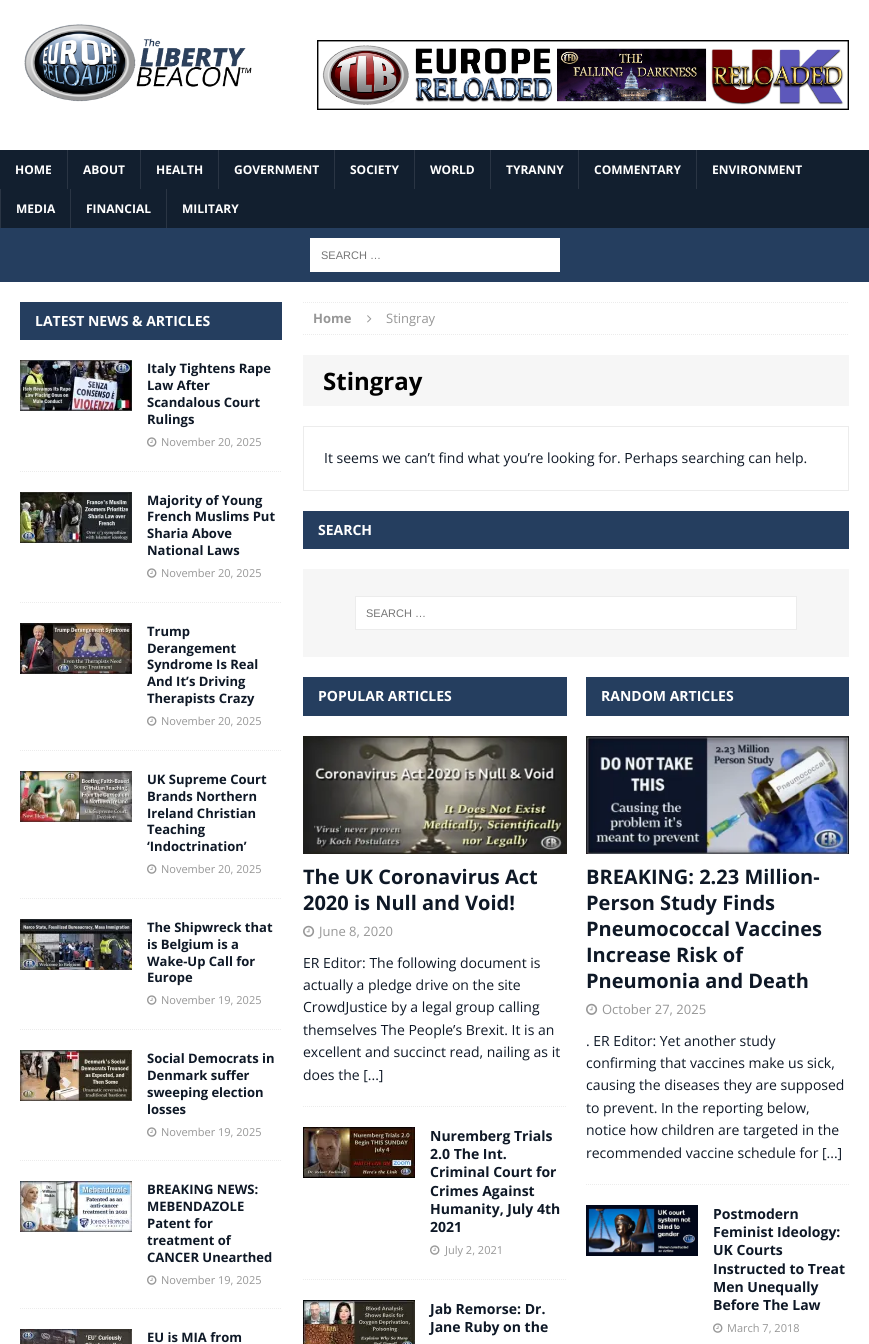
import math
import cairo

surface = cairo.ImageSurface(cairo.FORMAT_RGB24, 869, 1344)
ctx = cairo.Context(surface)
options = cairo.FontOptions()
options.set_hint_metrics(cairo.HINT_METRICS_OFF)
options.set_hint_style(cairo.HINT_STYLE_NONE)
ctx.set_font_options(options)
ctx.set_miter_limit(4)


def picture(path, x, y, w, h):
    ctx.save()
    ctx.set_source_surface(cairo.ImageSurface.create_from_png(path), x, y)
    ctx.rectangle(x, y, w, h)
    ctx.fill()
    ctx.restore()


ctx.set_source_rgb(1, 1, 1)
ctx.paint()
picture("img1.png", 24, 24, 228, 78)
picture("img2.png", 317, 40, 532, 70)
ctx.set_source_rgb(0.071, 0.122, 0.184)
ctx.rectangle(0, 150, 869, 78)
ctx.fill()
ctx.select_font_face("Open Sans", cairo.FONT_SLANT_NORMAL, cairo.FONT_WEIGHT_BOLD)
ctx.set_font_size(12)
ctx.set_source_rgb(1, 1, 1)
ctx.move_to(15, 174)
ctx.show_text("HOME")
ctx.set_source_rgb(0.165, 0.208, 0.267)
ctx.rectangle(67, 150, 1, 39)
ctx.fill()
ctx.set_source_rgb(1, 1, 1)
ctx.move_to(83, 174)
ctx.show_text("ABOUT")
ctx.set_source_rgb(0.165, 0.208, 0.267)
ctx.rectangle(140, 150, 1, 39)
ctx.fill()
ctx.set_source_rgb(1, 1, 1)
ctx.move_to(156, 174)
ctx.show_text("HEALTH")
ctx.set_source_rgb(0.165, 0.208, 0.267)
ctx.rectangle(218, 150, 1, 39)
ctx.fill()
ctx.set_source_rgb(1, 1, 1)
ctx.move_to(234, 174)
ctx.show_text("GOVERNMENT")
ctx.set_source_rgb(0.165, 0.208, 0.267)
ctx.rectangle(334, 150, 1, 39)
ctx.fill()
ctx.set_source_rgb(1, 1, 1)
ctx.move_to(350, 174)
ctx.show_text("SOCIETY")
ctx.set_source_rgb(0.165, 0.208, 0.267)
ctx.rectangle(414, 150, 1, 39)
ctx.fill()
ctx.set_source_rgb(1, 1, 1)
ctx.move_to(430, 174)
ctx.show_text("WORLD")
ctx.set_source_rgb(0.165, 0.208, 0.267)
ctx.rectangle(490, 150, 1, 39)
ctx.fill()
ctx.set_source_rgb(1, 1, 1)
ctx.move_to(506, 174)
ctx.show_text("TYRANNY")
ctx.set_source_rgb(0.165, 0.208, 0.267)
ctx.rectangle(578, 150, 1, 39)
ctx.fill()
ctx.set_source_rgb(1, 1, 1)
ctx.move_to(594, 174)
ctx.show_text("COMMENTARY")
ctx.set_source_rgb(0.165, 0.208, 0.267)
ctx.rectangle(696, 150, 1, 39)
ctx.fill()
ctx.set_source_rgb(1, 1, 1)
ctx.move_to(712, 174)
ctx.show_text("ENVIRONMENT")
ctx.set_source_rgb(0.165, 0.208, 0.267)
ctx.rectangle(0, 189, 1, 39)
ctx.fill()
ctx.set_source_rgb(1, 1, 1)
ctx.move_to(16, 213)
ctx.show_text("MEDIA")
ctx.set_source_rgb(0.165, 0.208, 0.267)
ctx.rectangle(70, 189, 1, 39)
ctx.fill()
ctx.set_source_rgb(1, 1, 1)
ctx.move_to(86, 213)
ctx.show_text("FINANCIAL")
ctx.set_source_rgb(0.165, 0.208, 0.267)
ctx.rectangle(166, 189, 1, 39)
ctx.fill()
ctx.set_source_rgb(1, 1, 1)
ctx.move_to(182, 213)
ctx.show_text("MILITARY")
ctx.set_source_rgb(0.145, 0.243, 0.373)
ctx.rectangle(0, 228, 869, 54)
ctx.fill()
ctx.set_source_rgb(1, 1, 1)
ctx.rectangle(310, 238, 250, 34)
ctx.fill()
ctx.select_font_face("Liberation Sans")
ctx.set_font_size(11)
ctx.set_source_rgb(0.459, 0.459, 0.459)
ctx.move_to(321, 259)
ctx.show_text("SEARCH …")
ctx.set_source_rgb(0.145, 0.243, 0.373)
ctx.rectangle(20, 302, 262, 38)
ctx.fill()
ctx.select_font_face("Open Sans", cairo.FONT_SLANT_NORMAL, cairo.FONT_WEIGHT_BOLD)
ctx.set_font_size(14)
ctx.set_source_rgb(1, 1, 1)
ctx.move_to(35, 326)
ctx.show_text("LATEST NEWS & ARTICLES")
ctx.new_path()
ctx.move_to(20, 471.5)
ctx.line_to(282, 471.5)
ctx.set_source_rgb(0.922, 0.922, 0.922)
ctx.set_line_width(1)
ctx.set_dash([1, 1])
ctx.stroke()
picture("img3.png", 20, 360, 112, 51)
ctx.set_font_size(13)
ctx.set_source_rgb(0.055, 0.094, 0.149)
ctx.move_to(147, 373)
ctx.show_text("Italy Tightens Rape")
ctx.move_to(147, 390)
ctx.show_text("Law After")
ctx.move_to(147, 407)
ctx.show_text("Scandalous Court")
ctx.move_to(147, 424)
ctx.show_text("Rulings")
picture("img4.png", 147, 437, 10, 10)
ctx.select_font_face("Open Sans")
ctx.set_font_size(11)
ctx.set_source_rgb(0.592, 0.592, 0.592)
ctx.move_to(161, 446)
ctx.show_text("November 20, 2025")
ctx.new_path()
ctx.move_to(20, 602.5)
ctx.line_to(282, 602.5)
ctx.set_source_rgb(0.922, 0.922, 0.922)
ctx.stroke()
picture("img5.png", 20, 492, 112, 51)
ctx.select_font_face("Open Sans", cairo.FONT_SLANT_NORMAL, cairo.FONT_WEIGHT_BOLD)
ctx.set_font_size(13)
ctx.set_source_rgb(0.055, 0.094, 0.149)
ctx.move_to(147, 505)
ctx.show_text("Majority of Young")
ctx.move_to(147, 521)
ctx.show_text("French Muslims Put")
ctx.move_to(147, 538)
ctx.show_text("Sharia Above")
ctx.move_to(147, 555)
ctx.show_text("National Laws")
picture("img4.png", 147, 568, 10, 10)
ctx.select_font_face("Open Sans")
ctx.set_font_size(11)
ctx.set_source_rgb(0.592, 0.592, 0.592)
ctx.move_to(161, 577)
ctx.show_text("November 20, 2025")
ctx.new_path()
ctx.move_to(20, 750.5)
ctx.line_to(282, 750.5)
ctx.set_source_rgb(0.922, 0.922, 0.922)
ctx.stroke()
picture("img6.png", 20, 623, 112, 51)
ctx.select_font_face("Open Sans", cairo.FONT_SLANT_NORMAL, cairo.FONT_WEIGHT_BOLD)
ctx.set_font_size(13)
ctx.set_source_rgb(0.055, 0.094, 0.149)
ctx.move_to(147, 636)
ctx.show_text("Trump")
ctx.move_to(147, 653)
ctx.show_text("Derangement")
ctx.move_to(147, 669)
ctx.show_text("Syndrome Is Real")
ctx.move_to(147, 686)
ctx.show_text("And It’s Driving")
ctx.move_to(147, 703)
ctx.show_text("Therapists Crazy")
picture("img4.png", 147, 716, 10, 10)
ctx.select_font_face("Open Sans")
ctx.set_font_size(11)
ctx.set_source_rgb(0.592, 0.592, 0.592)
ctx.move_to(161, 725)
ctx.show_text("November 20, 2025")
ctx.new_path()
ctx.move_to(20, 898.5)
ctx.line_to(282, 898.5)
ctx.set_source_rgb(0.922, 0.922, 0.922)
ctx.stroke()
picture("img7.png", 20, 771, 112, 51)
ctx.select_font_face("Open Sans", cairo.FONT_SLANT_NORMAL, cairo.FONT_WEIGHT_BOLD)
ctx.set_font_size(13)
ctx.set_source_rgb(0.055, 0.094, 0.149)
ctx.move_to(147, 784)
ctx.show_text("UK Supreme Court")
ctx.move_to(147, 801)
ctx.show_text("Brands Northern")
ctx.move_to(147, 818)
ctx.show_text("Ireland Christian")
ctx.move_to(147, 834)
ctx.show_text("Teaching")
ctx.move_to(147, 851)
ctx.show_text("‘Indoctrination’")
picture("img4.png", 147, 864, 10, 10)
ctx.select_font_face("Open Sans")
ctx.set_font_size(11)
ctx.set_source_rgb(0.592, 0.592, 0.592)
ctx.move_to(161, 873)
ctx.show_text("November 20, 2025")
ctx.new_path()
ctx.move_to(20, 1029.5)
ctx.line_to(282, 1029.5)
ctx.set_source_rgb(0.922, 0.922, 0.922)
ctx.stroke()
picture("img8.png", 20, 919, 112, 51)
ctx.select_font_face("Open Sans", cairo.FONT_SLANT_NORMAL, cairo.FONT_WEIGHT_BOLD)
ctx.set_font_size(13)
ctx.set_source_rgb(0.055, 0.094, 0.149)
ctx.move_to(147, 932)
ctx.show_text("The Shipwreck that")
ctx.move_to(147, 949)
ctx.show_text("is Belgium is a")
ctx.move_to(147, 966)
ctx.show_text("Wake-Up Call for")
ctx.move_to(147, 982)
ctx.show_text("Europe")
picture("img4.png", 147, 995, 10, 10)
ctx.select_font_face("Open Sans")
ctx.set_font_size(11)
ctx.set_source_rgb(0.592, 0.592, 0.592)
ctx.move_to(161, 1004)
ctx.show_text("November 19, 2025")
ctx.new_path()
ctx.move_to(20, 1160.5)
ctx.line_to(282, 1160.5)
ctx.set_source_rgb(0.922, 0.922, 0.922)
ctx.stroke()
picture("img9.png", 20, 1050, 112, 51)
ctx.select_font_face("Open Sans", cairo.FONT_SLANT_NORMAL, cairo.FONT_WEIGHT_BOLD)
ctx.set_font_size(13)
ctx.set_source_rgb(0.055, 0.094, 0.149)
ctx.move_to(147, 1063)
ctx.show_text("Social Democrats in")
ctx.move_to(147, 1080)
ctx.show_text("Denmark suffer")
ctx.move_to(147, 1097)
ctx.show_text("sweeping election")
ctx.move_to(147, 1114)
ctx.show_text("losses")
picture("img4.png", 147, 1127, 10, 10)
ctx.select_font_face("Open Sans")
ctx.set_font_size(11)
ctx.set_source_rgb(0.592, 0.592, 0.592)
ctx.move_to(161, 1136)
ctx.show_text("November 19, 2025")
ctx.new_path()
ctx.move_to(20, 1308.5)
ctx.line_to(282, 1308.5)
ctx.set_source_rgb(0.922, 0.922, 0.922)
ctx.stroke()
picture("img10.png", 20, 1181, 112, 51)
ctx.select_font_face("Open Sans", cairo.FONT_SLANT_NORMAL, cairo.FONT_WEIGHT_BOLD)
ctx.set_font_size(13)
ctx.set_source_rgb(0.055, 0.094, 0.149)
ctx.move_to(147, 1194)
ctx.show_text("BREAKING NEWS:")
ctx.move_to(147, 1211)
ctx.show_text("MEBENDAZOLE")
ctx.move_to(147, 1228)
ctx.show_text("Patent for")
ctx.move_to(147, 1245)
ctx.show_text("treatment of")
ctx.move_to(147, 1262)
ctx.show_text("CANCER Unearthed")
picture("img4.png", 147, 1275, 10, 10)
ctx.select_font_face("Open Sans")
ctx.set_font_size(11)
ctx.set_source_rgb(0.592, 0.592, 0.592)
ctx.move_to(161, 1284)
ctx.show_text("November 19, 2025")
picture("img11.png", 20, 1329, 112, 15)
ctx.select_font_face("Open Sans", cairo.FONT_SLANT_NORMAL, cairo.FONT_WEIGHT_BOLD)
ctx.set_font_size(13)
ctx.set_source_rgb(0.055, 0.094, 0.149)
ctx.move_to(147, 1342)
ctx.show_text("EU is MIA from")
ctx.new_path()
ctx.move_to(303, 302.5)
ctx.line_to(849, 302.5)
ctx.set_source_rgb(0.922, 0.922, 0.922)
ctx.stroke()
ctx.new_path()
ctx.move_to(303, 334.5)
ctx.line_to(849, 334.5)
ctx.stroke()
ctx.set_source_rgb(0.592, 0.592, 0.592)
ctx.move_to(313, 323)
ctx.show_text("Home")
picture("img12.png", 367, 315, 5, 8)
ctx.select_font_face("Open Sans")
ctx.move_to(386, 323)
ctx.show_text("Stingray")
ctx.set_source_rgb(0.961, 0.961, 0.961)
ctx.rectangle(303, 355, 546, 51)
ctx.fill()
ctx.select_font_face("Open Sans", cairo.FONT_SLANT_NORMAL, cairo.FONT_WEIGHT_BOLD)
ctx.set_font_size(24)
ctx.set_source_rgb(0, 0, 0)
ctx.move_to(323, 390)
ctx.show_text("Stingray")
ctx.rectangle(303.5, 426.5, 545, 64)
ctx.set_source_rgb(0.922, 0.922, 0.922)
ctx.set_dash([])
ctx.stroke()
ctx.select_font_face("Open Sans")
ctx.set_font_size(14)
ctx.set_source_rgb(0.055, 0.094, 0.149)
ctx.move_to(324, 463)
ctx.show_text("It seems we can’t find what you’re looking for. Perhaps searching can help.")
ctx.set_source_rgb(0.145, 0.243, 0.373)
ctx.rectangle(303, 511, 546, 38)
ctx.fill()
ctx.select_font_face("Open Sans", cairo.FONT_SLANT_NORMAL, cairo.FONT_WEIGHT_BOLD)
ctx.set_source_rgb(1, 1, 1)
ctx.move_to(318, 535)
ctx.show_text("SEARCH")
ctx.set_source_rgb(0.961, 0.961, 0.961)
ctx.rectangle(303, 569, 546, 88)
ctx.fill()
ctx.set_source_rgb(1, 1, 1)
ctx.rectangle(355.5, 596.5, 441, 33)
ctx.fill_preserve()
ctx.set_source_rgb(0.922, 0.922, 0.922)
ctx.stroke()
ctx.select_font_face("Liberation Sans")
ctx.set_font_size(11)
ctx.set_source_rgb(0.459, 0.459, 0.459)
ctx.move_to(366, 617)
ctx.show_text("SEARCH …")
ctx.set_source_rgb(0.145, 0.243, 0.373)
ctx.rectangle(303, 677, 264, 39)
ctx.fill()
ctx.select_font_face("Open Sans", cairo.FONT_SLANT_NORMAL, cairo.FONT_WEIGHT_BOLD)
ctx.set_font_size(14)
ctx.set_source_rgb(1, 1, 1)
ctx.move_to(318, 701)
ctx.show_text("POPULAR ARTICLES")
ctx.new_path()
ctx.move_to(303, 1106.5)
ctx.line_to(567, 1106.5)
ctx.set_source_rgb(0.922, 0.922, 0.922)
ctx.set_dash([1, 1])
ctx.stroke()
picture("img13.png", 303, 736, 264, 118)
ctx.set_font_size(20)
ctx.set_source_rgb(0.055, 0.094, 0.149)
ctx.move_to(303, 884)
ctx.show_text("The UK Coronavirus Act")
ctx.move_to(303, 910)
ctx.show_text("2020 is Null and Void!")
picture("img14.png", 303, 925, 12, 12)
ctx.select_font_face("Open Sans")
ctx.set_font_size(13)
ctx.set_source_rgb(0.592, 0.592, 0.592)
ctx.move_to(319, 936)
ctx.show_text("June 8, 2020")
ctx.set_font_size(14)
ctx.set_source_rgb(0.055, 0.094, 0.149)
ctx.move_to(303, 968)
ctx.show_text("ER Editor: The following document is")
ctx.move_to(303, 990)
ctx.show_text("actually a pledge drive on the site")
ctx.move_to(303, 1012)
ctx.show_text("CrowdJustice by a legal group calling")
ctx.move_to(303, 1035)
ctx.show_text("themselves The People’s Brexit. It is an")
ctx.move_to(303, 1057)
ctx.show_text("excellent and succinct read, nailing as it")
ctx.move_to(303, 1080)
ctx.show_text("does the [...]")
ctx.new_path()
ctx.move_to(303, 1279.5)
ctx.line_to(567, 1279.5)
ctx.set_source_rgb(0.922, 0.922, 0.922)
ctx.stroke()
picture("img15.png", 303, 1127, 112, 51)
ctx.select_font_face("Open Sans", cairo.FONT_SLANT_NORMAL, cairo.FONT_WEIGHT_BOLD)
ctx.set_source_rgb(0.055, 0.094, 0.149)
ctx.move_to(430, 1141)
ctx.show_text("Nuremberg Trials")
ctx.move_to(430, 1159)
ctx.show_text("2.0 The Int.")
ctx.move_to(430, 1177)
ctx.show_text("Criminal Court for")
ctx.move_to(430, 1196)
ctx.show_text("Crimes Against")
ctx.move_to(430, 1214)
ctx.show_text("Humanity, July 4th")
ctx.move_to(430, 1232)
ctx.show_text("2021")
picture("img4.png", 430, 1245, 10, 10)
ctx.select_font_face("Open Sans")
ctx.set_font_size(11)
ctx.set_source_rgb(0.592, 0.592, 0.592)
ctx.move_to(445, 1254)
ctx.show_text("July 2, 2021")
picture("img16.png", 303, 1300, 112, 44)
ctx.select_font_face("Open Sans", cairo.FONT_SLANT_NORMAL, cairo.FONT_WEIGHT_BOLD)
ctx.set_font_size(14)
ctx.set_source_rgb(0.055, 0.094, 0.149)
ctx.move_to(430, 1314)
ctx.show_text("Jab Remorse: Dr.")
ctx.move_to(430, 1332)
ctx.show_text("Jane Ruby on the")
ctx.set_source_rgb(0.145, 0.243, 0.373)
ctx.rectangle(586, 677, 263, 39)
ctx.fill()
ctx.set_source_rgb(1, 1, 1)
ctx.move_to(601, 701)
ctx.show_text("RANDOM ARTICLES")
ctx.new_path()
ctx.move_to(586, 1184.5)
ctx.line_to(849, 1184.5)
ctx.set_source_rgb(0.922, 0.922, 0.922)
ctx.stroke()
picture("img17.png", 586, 736, 263, 118)
ctx.set_font_size(20)
ctx.set_source_rgb(0.055, 0.094, 0.149)
ctx.move_to(586, 884)
ctx.show_text("BREAKING: 2.23 Million-")
ctx.move_to(586, 910)
ctx.show_text("Person Study Finds")
ctx.move_to(586, 936)
ctx.show_text("Pneumococcal Vaccines")
ctx.move_to(586, 962)
ctx.show_text("Increase Risk of")
ctx.move_to(586, 988)
ctx.show_text("Pneumonia and Death")
picture("img14.png", 586, 1003, 12, 12)
ctx.select_font_face("Open Sans")
ctx.set_font_size(13)
ctx.set_source_rgb(0.592, 0.592, 0.592)
ctx.move_to(602, 1014)
ctx.show_text("October 27, 2025")
ctx.set_font_size(14)
ctx.set_source_rgb(0.055, 0.094, 0.149)
ctx.move_to(586, 1046)
ctx.show_text(". ER Editor: Yet another study")
ctx.move_to(586, 1068)
ctx.show_text("confirming that vaccines make us sick,")
ctx.move_to(586, 1090)
ctx.show_text("causing the diseases they are supposed")
ctx.move_to(586, 1113)
ctx.show_text("to prevent. In the reporting below,")
ctx.move_to(586, 1135)
ctx.show_text("notice how children are targeted in the")
ctx.move_to(586, 1158)
ctx.show_text("recommended vaccine schedule for [...]")
picture("img18.png", 586, 1205, 112, 51)
ctx.select_font_face("Open Sans", cairo.FONT_SLANT_NORMAL, cairo.FONT_WEIGHT_BOLD)
ctx.move_to(713, 1219)
ctx.show_text("Postmodern")
ctx.move_to(713, 1237)
ctx.show_text("Feminist Ideology:")
ctx.move_to(713, 1255)
ctx.show_text("UK Courts")
ctx.move_to(713, 1274)
ctx.show_text("Instructed to Treat")
ctx.move_to(713, 1292)
ctx.show_text("Men Unequally")
ctx.move_to(713, 1310)
ctx.show_text("Before The Law")
picture("img4.png", 713, 1323, 10, 10)
ctx.select_font_face("Open Sans")
ctx.set_font_size(11)
ctx.set_source_rgb(0.592, 0.592, 0.592)
ctx.move_to(727, 1332)
ctx.show_text("March 7, 2018")
surface.write_to_png("page.png")
